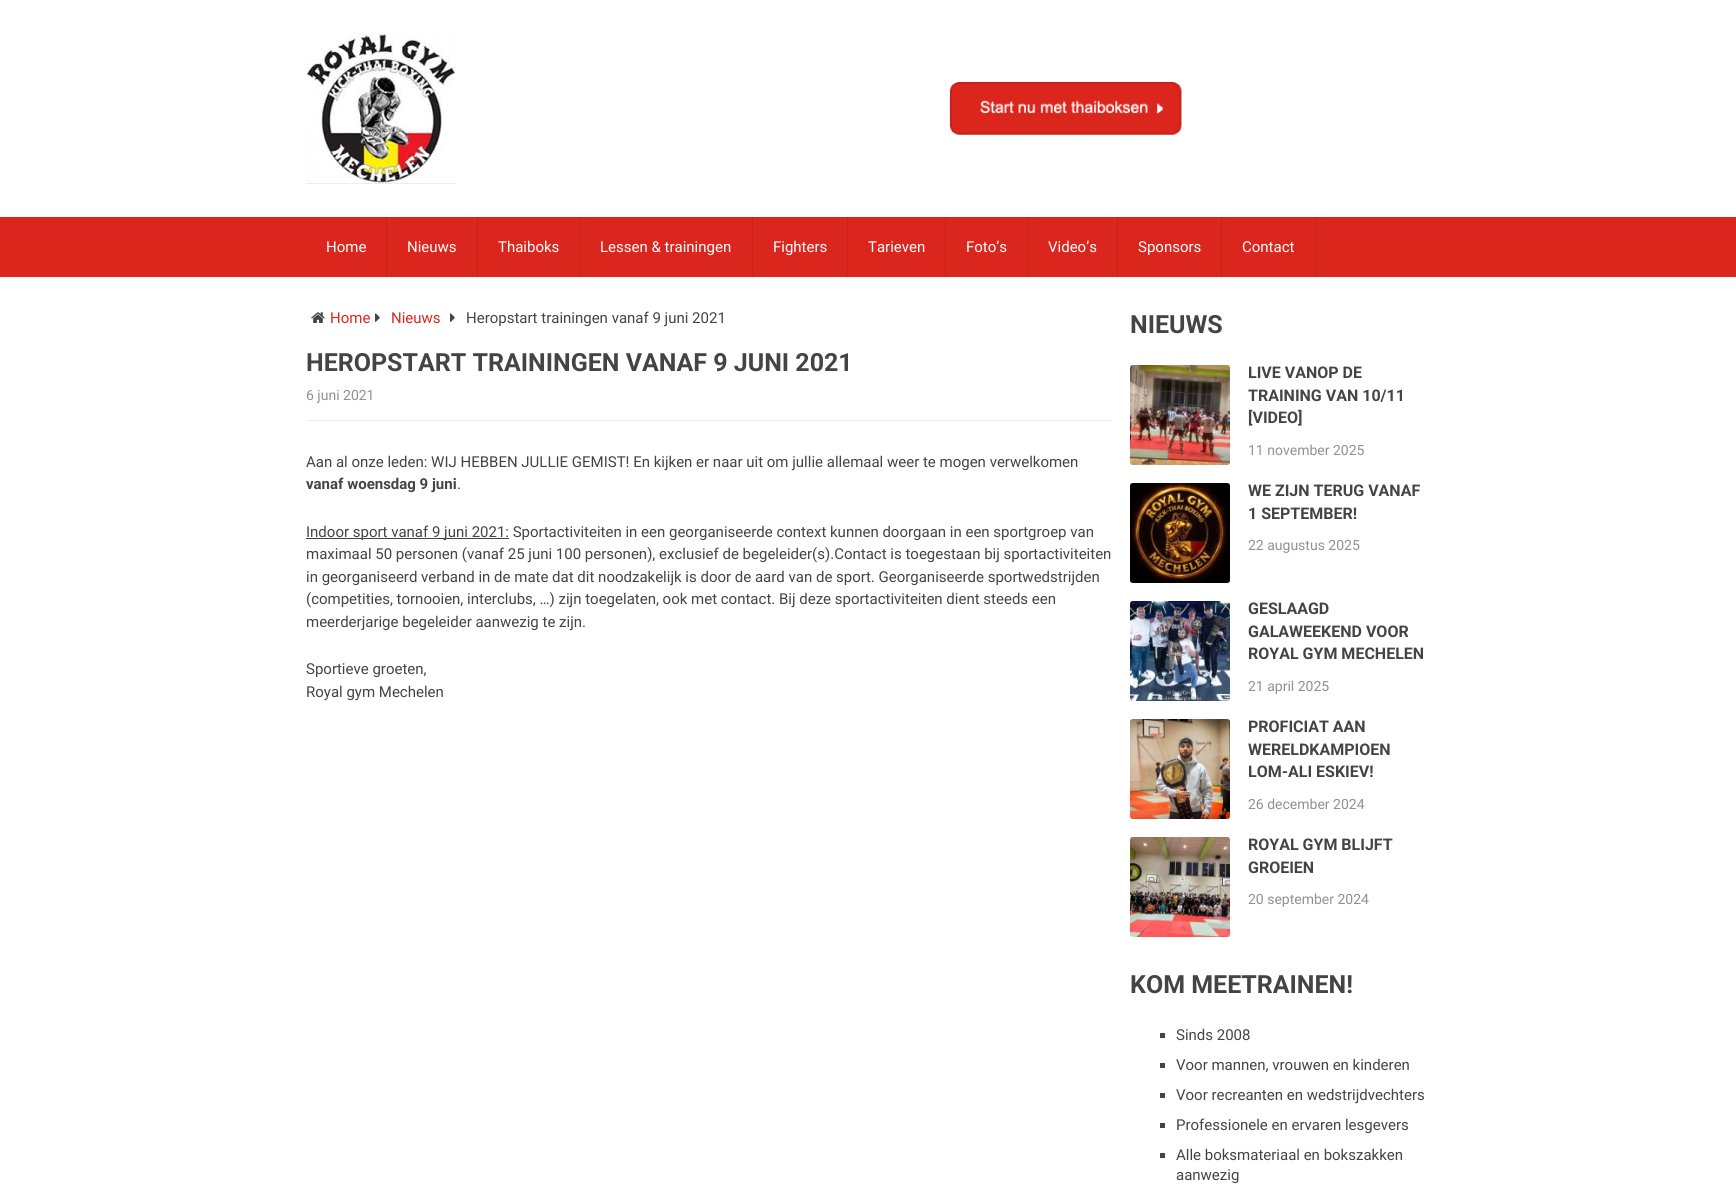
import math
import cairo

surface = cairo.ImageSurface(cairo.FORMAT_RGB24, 1736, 1192)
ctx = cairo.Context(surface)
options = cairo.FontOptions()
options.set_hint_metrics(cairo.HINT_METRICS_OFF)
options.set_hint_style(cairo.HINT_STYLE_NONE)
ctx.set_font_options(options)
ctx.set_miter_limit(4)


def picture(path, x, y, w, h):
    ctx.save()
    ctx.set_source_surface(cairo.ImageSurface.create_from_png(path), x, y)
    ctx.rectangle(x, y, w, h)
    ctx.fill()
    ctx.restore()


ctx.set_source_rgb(1, 1, 1)
ctx.paint()
picture("img1.png", 306, 34, 150, 150)
picture("img2.png", 949, 82, 233, 53)
ctx.set_source_rgb(0.859, 0.149, 0.114)
ctx.rectangle(0, 217, 1736, 60)
ctx.fill()
ctx.set_source_rgb(0.773, 0.133, 0.102)
ctx.rectangle(386, 217, 1, 60)
ctx.fill()
ctx.select_font_face("Roboto")
ctx.set_font_size(15)
ctx.set_source_rgb(1, 1, 1)
ctx.move_to(326, 252)
ctx.show_text("Home")
ctx.set_source_rgb(0.773, 0.133, 0.102)
ctx.rectangle(477, 217, 1, 60)
ctx.fill()
ctx.set_source_rgb(1, 1, 1)
ctx.move_to(407, 252)
ctx.show_text("Nieuws")
ctx.set_source_rgb(0.773, 0.133, 0.102)
ctx.rectangle(579, 217, 1, 60)
ctx.fill()
ctx.set_source_rgb(1, 1, 1)
ctx.move_to(498, 252)
ctx.show_text("Thaiboks")
ctx.set_source_rgb(0.773, 0.133, 0.102)
ctx.rectangle(752, 217, 1, 60)
ctx.fill()
ctx.set_source_rgb(1, 1, 1)
ctx.move_to(600, 252)
ctx.show_text("Lessen & trainingen")
ctx.set_source_rgb(0.773, 0.133, 0.102)
ctx.rectangle(847, 217, 1, 60)
ctx.fill()
ctx.set_source_rgb(1, 1, 1)
ctx.move_to(773, 252)
ctx.show_text("Fighters")
ctx.set_source_rgb(0.773, 0.133, 0.102)
ctx.rectangle(945, 217, 1, 60)
ctx.fill()
ctx.set_source_rgb(1, 1, 1)
ctx.move_to(868, 252)
ctx.show_text("Tarieven")
ctx.set_source_rgb(0.773, 0.133, 0.102)
ctx.rectangle(1027, 217, 1, 60)
ctx.fill()
ctx.set_source_rgb(1, 1, 1)
ctx.move_to(966, 252)
ctx.show_text("Foto’s")
ctx.set_source_rgb(0.773, 0.133, 0.102)
ctx.rectangle(1117, 217, 1, 60)
ctx.fill()
ctx.set_source_rgb(1, 1, 1)
ctx.move_to(1048, 252)
ctx.show_text("Video’s")
ctx.set_source_rgb(0.773, 0.133, 0.102)
ctx.rectangle(1221, 217, 1, 60)
ctx.fill()
ctx.set_source_rgb(1, 1, 1)
ctx.move_to(1138, 252)
ctx.show_text("Sponsors")
ctx.set_source_rgb(0.773, 0.133, 0.102)
ctx.rectangle(1315, 217, 1, 60)
ctx.fill()
ctx.set_source_rgb(1, 1, 1)
ctx.move_to(1242, 252)
ctx.show_text("Contact")
picture("img3.png", 311, 312, 14, 11)
ctx.set_source_rgb(0.859, 0.149, 0.114)
ctx.move_to(330, 323)
ctx.show_text("Home")
picture("img4.png", 375, 313, 5, 9)
ctx.move_to(391, 323)
ctx.show_text("Nieuws")
picture("img4.png", 450, 313, 5, 9)
ctx.set_source_rgb(0.267, 0.267, 0.267)
ctx.move_to(466, 323)
ctx.show_text("Heropstart trainingen vanaf 9 juni 2021")
ctx.set_source_rgb(0.933, 0.933, 0.933)
ctx.rectangle(306, 420, 806, 1)
ctx.fill()
ctx.select_font_face("Roboto", cairo.FONT_SLANT_NORMAL, cairo.FONT_WEIGHT_BOLD)
ctx.set_font_size(25)
ctx.set_source_rgb(0.267, 0.267, 0.267)
ctx.move_to(306, 371)
ctx.show_text("HEROPSTART TRAININGEN VANAF 9 JUNI 2021")
ctx.select_font_face("Roboto")
ctx.set_font_size(14)
ctx.set_source_rgb(0.569, 0.569, 0.569)
ctx.move_to(306, 400)
ctx.show_text("6 juni 2021")
ctx.set_font_size(15)
ctx.set_source_rgb(0.267, 0.267, 0.267)
ctx.move_to(306, 467)
ctx.show_text("Aan al onze leden: WIJ HEBBEN JULLIE GEMIST! En kijken er naar uit om jullie allemaal weer te mogen verwelkomen")
ctx.select_font_face("Roboto", cairo.FONT_SLANT_NORMAL, cairo.FONT_WEIGHT_BOLD)
ctx.move_to(306, 489)
ctx.show_text("vanaf woensdag 9 juni")
ctx.select_font_face("Roboto")
ctx.move_to(457, 489)
ctx.show_text(".")
ctx.rectangle(306, 538, 203, 1)
ctx.fill()
ctx.move_to(306, 537)
ctx.show_text("Indoor sport vanaf 9 juni 2021: Sportactiviteiten in een georganiseerde context kunnen doorgaan in een sportgroep van")
ctx.move_to(306, 559)
ctx.show_text("maximaal 50 personen (vanaf 25 juni 100 personen), exclusief de begeleider(s).Contact is toegestaan bij sportactiviteiten")
ctx.move_to(306, 582)
ctx.show_text("in georganiseerd verband in de mate dat dit noodzakelijk is door de aard van de sport. Georganiseerde sportwedstrijden")
ctx.move_to(306, 604)
ctx.show_text("(competities, tornooien, interclubs, …) zijn toegelaten, ook met contact. Bij deze sportactiviteiten dient steeds een")
ctx.move_to(306, 627)
ctx.show_text("meerderjarige begeleider aanwezig te zijn.")
ctx.move_to(306, 674)
ctx.show_text("Sportieve groeten,")
ctx.move_to(306, 697)
ctx.show_text("Royal gym Mechelen")
ctx.select_font_face("Roboto", cairo.FONT_SLANT_NORMAL, cairo.FONT_WEIGHT_BOLD)
ctx.set_font_size(25)
ctx.move_to(1130, 333)
ctx.show_text("NIEUWS")
picture("img5.png", 1130, 365, 100, 100)
ctx.set_font_size(16)
ctx.move_to(1248, 378)
ctx.show_text("LIVE VANOP DE")
ctx.move_to(1248, 401)
ctx.show_text("TRAINING VAN 10/11")
ctx.move_to(1248, 423)
ctx.show_text("[VIDEO]")
ctx.select_font_face("Roboto")
ctx.set_font_size(14)
ctx.set_source_rgb(0.569, 0.569, 0.569)
ctx.move_to(1248, 455)
ctx.show_text("11 november 2025")
picture("img6.png", 1130, 483, 100, 100)
ctx.select_font_face("Roboto", cairo.FONT_SLANT_NORMAL, cairo.FONT_WEIGHT_BOLD)
ctx.set_font_size(16)
ctx.set_source_rgb(0.267, 0.267, 0.267)
ctx.move_to(1248, 496)
ctx.show_text("WE ZIJN TERUG VANAF")
ctx.move_to(1248, 519)
ctx.show_text("1 SEPTEMBER!")
ctx.select_font_face("Roboto")
ctx.set_font_size(14)
ctx.set_source_rgb(0.569, 0.569, 0.569)
ctx.move_to(1248, 550)
ctx.show_text("22 augustus 2025")
picture("img7.png", 1130, 601, 100, 100)
ctx.select_font_face("Roboto", cairo.FONT_SLANT_NORMAL, cairo.FONT_WEIGHT_BOLD)
ctx.set_font_size(16)
ctx.set_source_rgb(0.267, 0.267, 0.267)
ctx.move_to(1248, 614)
ctx.show_text("GESLAAGD")
ctx.move_to(1248, 637)
ctx.show_text("GALAWEEKEND VOOR")
ctx.move_to(1248, 659)
ctx.show_text("ROYAL GYM MECHELEN")
ctx.select_font_face("Roboto")
ctx.set_font_size(14)
ctx.set_source_rgb(0.569, 0.569, 0.569)
ctx.move_to(1248, 691)
ctx.show_text("21 april 2025")
picture("img8.png", 1130, 719, 100, 100)
ctx.select_font_face("Roboto", cairo.FONT_SLANT_NORMAL, cairo.FONT_WEIGHT_BOLD)
ctx.set_font_size(16)
ctx.set_source_rgb(0.267, 0.267, 0.267)
ctx.move_to(1248, 732)
ctx.show_text("PROFICIAT AAN")
ctx.move_to(1248, 755)
ctx.show_text("WERELDKAMPIOEN")
ctx.move_to(1248, 777)
ctx.show_text("LOM-ALI ESKIEV!")
ctx.select_font_face("Roboto")
ctx.set_font_size(14)
ctx.set_source_rgb(0.569, 0.569, 0.569)
ctx.move_to(1248, 809)
ctx.show_text("26 december 2024")
picture("img9.png", 1130, 837, 100, 100)
ctx.select_font_face("Roboto", cairo.FONT_SLANT_NORMAL, cairo.FONT_WEIGHT_BOLD)
ctx.set_font_size(16)
ctx.set_source_rgb(0.267, 0.267, 0.267)
ctx.move_to(1248, 850)
ctx.show_text("ROYAL GYM BLIJFT")
ctx.move_to(1248, 873)
ctx.show_text("GROEIEN")
ctx.select_font_face("Roboto")
ctx.set_font_size(14)
ctx.set_source_rgb(0.569, 0.569, 0.569)
ctx.move_to(1248, 904)
ctx.show_text("20 september 2024")
ctx.select_font_face("Roboto", cairo.FONT_SLANT_NORMAL, cairo.FONT_WEIGHT_BOLD)
ctx.set_font_size(25)
ctx.set_source_rgb(0.267, 0.267, 0.267)
ctx.move_to(1130, 993)
ctx.show_text("KOM MEETRAINEN!")
ctx.rectangle(1160, 1033, 5, 5)
ctx.fill()
ctx.select_font_face("Roboto")
ctx.set_font_size(15)
ctx.move_to(1176, 1040)
ctx.show_text("Sinds 2008")
ctx.rectangle(1160, 1063, 5, 5)
ctx.fill()
ctx.move_to(1176, 1070)
ctx.show_text("Voor mannen, vrouwen en kinderen")
ctx.rectangle(1160, 1093, 5, 5)
ctx.fill()
ctx.move_to(1176, 1100)
ctx.show_text("Voor recreanten en wedstrijdvechters")
ctx.rectangle(1160, 1123, 5, 5)
ctx.fill()
ctx.move_to(1176, 1130)
ctx.show_text("Professionele en ervaren lesgevers")
ctx.rectangle(1160, 1153, 5, 5)
ctx.fill()
ctx.move_to(1176, 1160)
ctx.show_text("Alle boksmateriaal en bokszakken")
ctx.move_to(1176, 1180)
ctx.show_text("aanwezig")
surface.write_to_png("page.png")
